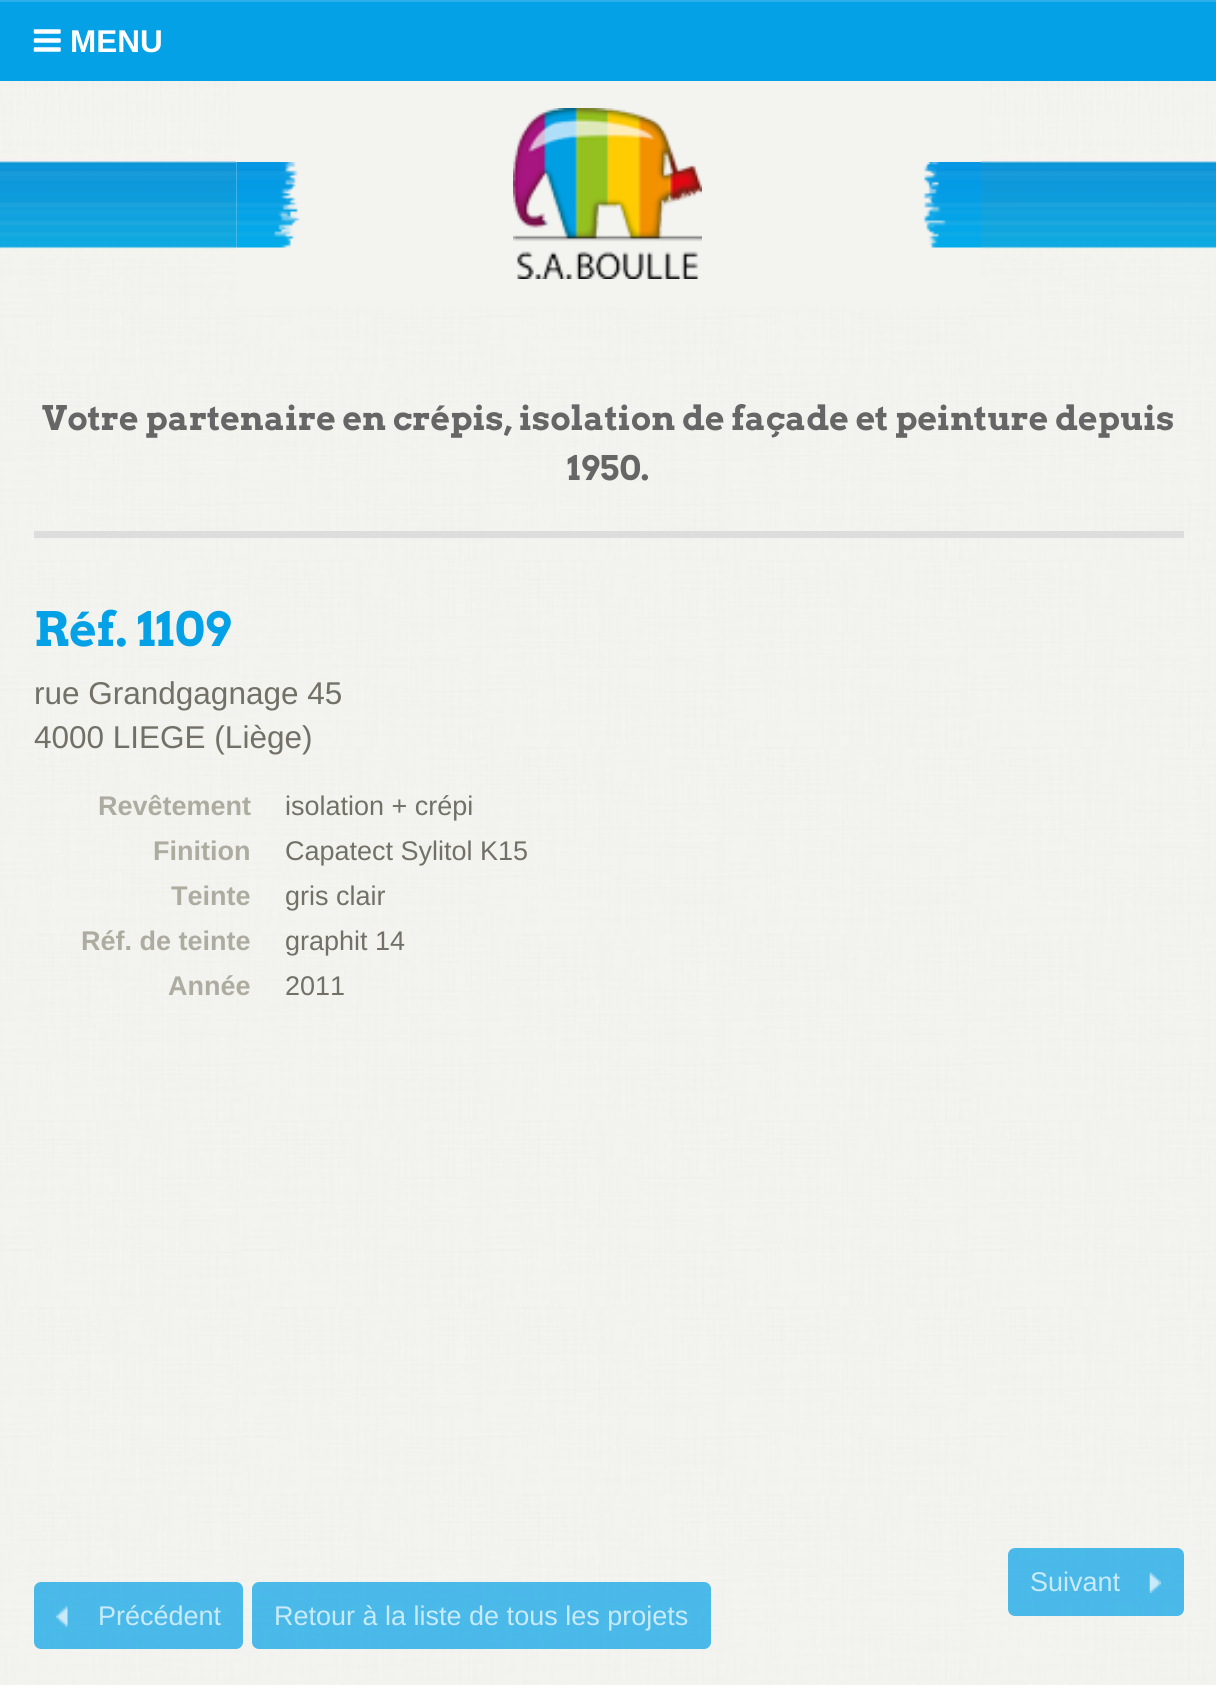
import math
import cairo

surface = cairo.ImageSurface(cairo.FORMAT_RGB24, 1216, 1685)
ctx = cairo.Context(surface)
options = cairo.FontOptions()
options.set_hint_metrics(cairo.HINT_METRICS_OFF)
options.set_hint_style(cairo.HINT_STYLE_NONE)
ctx.set_font_options(options)
ctx.set_miter_limit(4)


def round_rect(x, y, w, h, r):
    ctx.new_sub_path()
    for i, (u, v) in enumerate([(x + w - r, y + h - r), (x + r, y + h - r), (x + r, y + r), (x + w - r, y + r)]):
        ctx.arc(u, v, r, i * math.pi / 2, (i + 1) * math.pi / 2)
    ctx.close_path()


def picture(path, x, y, w, h):
    ctx.save()
    ctx.set_source_surface(cairo.ImageSurface.create_from_png(path), x, y)
    ctx.rectangle(x, y, w, h)
    ctx.fill()
    ctx.restore()


ctx.set_source_rgb(1, 1, 1)
ctx.paint()
picture("img1.png", 0, 258, 1216, 1427)
ctx.set_source_rgb(0.016, 0.631, 0.906)
ctx.rectangle(0, 2, 1216, 79)
ctx.fill()
ctx.set_source_rgb(0.165, 0.686, 0.922)
ctx.rectangle(0, 0, 1216, 2)
ctx.fill()
picture("img2.png", 33, 29, 28, 23)
ctx.select_font_face("Liberation Sans", cairo.FONT_SLANT_NORMAL, cairo.FONT_WEIGHT_BOLD)
ctx.set_font_size(31.5)
ctx.set_source_rgb(1, 1, 1)
ctx.move_to(70, 52)
ctx.show_text("MENU")
picture("img3.png", 0, 81, 1216, 177)
ctx.set_source_rgb(0.953, 0.953, 0.941)
ctx.rectangle(236, 81, 745, 225)
ctx.fill()
picture("img4.png", 236, 162, 64, 86)
picture("img5.png", 513, 108, 189, 171)
picture("img6.png", 922, 162, 59, 86)
ctx.set_source_rgb(0.867, 0.867, 0.867)
ctx.rectangle(34, 531, 1150, 7)
ctx.fill()
ctx.select_font_face("Arvo", cairo.FONT_SLANT_NORMAL, cairo.FONT_WEIGHT_BOLD)
ctx.set_font_size(33.75)
ctx.set_source_rgb(0.4, 0.4, 0.4)
ctx.move_to(42, 430)
ctx.show_text("Votre partenaire en crépis, isolation de façade et peinture depuis")
ctx.move_to(567, 480)
ctx.show_text("1950.")
ctx.set_font_size(47.25)
ctx.set_source_rgb(0.016, 0.631, 0.906)
ctx.move_to(34, 646)
ctx.show_text("Réf. 1109")
ctx.select_font_face("Liberation Sans")
ctx.set_font_size(31.5)
ctx.set_source_rgb(0.443, 0.443, 0.404)
ctx.move_to(34, 704)
ctx.show_text("rue Grandgagnage 45")
ctx.move_to(34, 748)
ctx.show_text("4000 LIEGE (Liège)")
ctx.select_font_face("Liberation Sans", cairo.FONT_SLANT_NORMAL, cairo.FONT_WEIGHT_BOLD)
ctx.set_font_size(27)
ctx.set_source_rgb(0.675, 0.675, 0.627)
ctx.move_to(98, 815)
ctx.show_text("Revêtement")
ctx.select_font_face("Liberation Sans")
ctx.set_source_rgb(0.443, 0.443, 0.404)
ctx.move_to(285, 815)
ctx.show_text("isolation + crépi")
ctx.select_font_face("Liberation Sans", cairo.FONT_SLANT_NORMAL, cairo.FONT_WEIGHT_BOLD)
ctx.set_source_rgb(0.675, 0.675, 0.627)
ctx.move_to(153, 860)
ctx.show_text("Finition")
ctx.select_font_face("Liberation Sans")
ctx.set_source_rgb(0.443, 0.443, 0.404)
ctx.move_to(285, 860)
ctx.show_text("Capatect Sylitol K15")
ctx.select_font_face("Liberation Sans", cairo.FONT_SLANT_NORMAL, cairo.FONT_WEIGHT_BOLD)
ctx.set_source_rgb(0.675, 0.675, 0.627)
ctx.move_to(171, 905)
ctx.show_text("Teinte")
ctx.select_font_face("Liberation Sans")
ctx.set_source_rgb(0.443, 0.443, 0.404)
ctx.move_to(285, 905)
ctx.show_text("gris clair")
ctx.select_font_face("Liberation Sans", cairo.FONT_SLANT_NORMAL, cairo.FONT_WEIGHT_BOLD)
ctx.set_source_rgb(0.675, 0.675, 0.627)
ctx.move_to(81, 950)
ctx.show_text("Réf. de teinte")
ctx.select_font_face("Liberation Sans")
ctx.set_source_rgb(0.443, 0.443, 0.404)
ctx.move_to(285, 950)
ctx.show_text("graphit 14")
ctx.select_font_face("Liberation Sans", cairo.FONT_SLANT_NORMAL, cairo.FONT_WEIGHT_BOLD)
ctx.set_source_rgb(0.675, 0.675, 0.627)
ctx.move_to(168, 995)
ctx.show_text("Année")
ctx.select_font_face("Liberation Sans")
ctx.set_source_rgb(0.443, 0.443, 0.404)
ctx.move_to(285, 995)
ctx.show_text("2011")
ctx.set_source_rgba(0.016, 0.631, 0.906, 0.7)
round_rect(1008, 1548, 176, 68, 7)
ctx.fill()
ctx.set_source_rgb(0.788, 0.918, 0.973)
ctx.move_to(1030, 1591)
ctx.show_text("Suivant")
picture("img7.png", 1149, 1572, 12, 21)
ctx.set_source_rgba(0.016, 0.631, 0.906, 0.7)
round_rect(34, 1582, 209, 67, 7)
ctx.fill()
picture("img8.png", 56, 1606, 12, 21)
ctx.set_source_rgb(0.788, 0.918, 0.973)
ctx.move_to(98, 1625)
ctx.show_text("Précédent")
ctx.set_source_rgba(0.016, 0.631, 0.906, 0.7)
round_rect(252, 1582, 459, 67, 7)
ctx.fill()
ctx.set_source_rgb(0.788, 0.918, 0.973)
ctx.move_to(274, 1625)
ctx.show_text("Retour à la liste de tous les projets")
surface.write_to_png("page.png")
